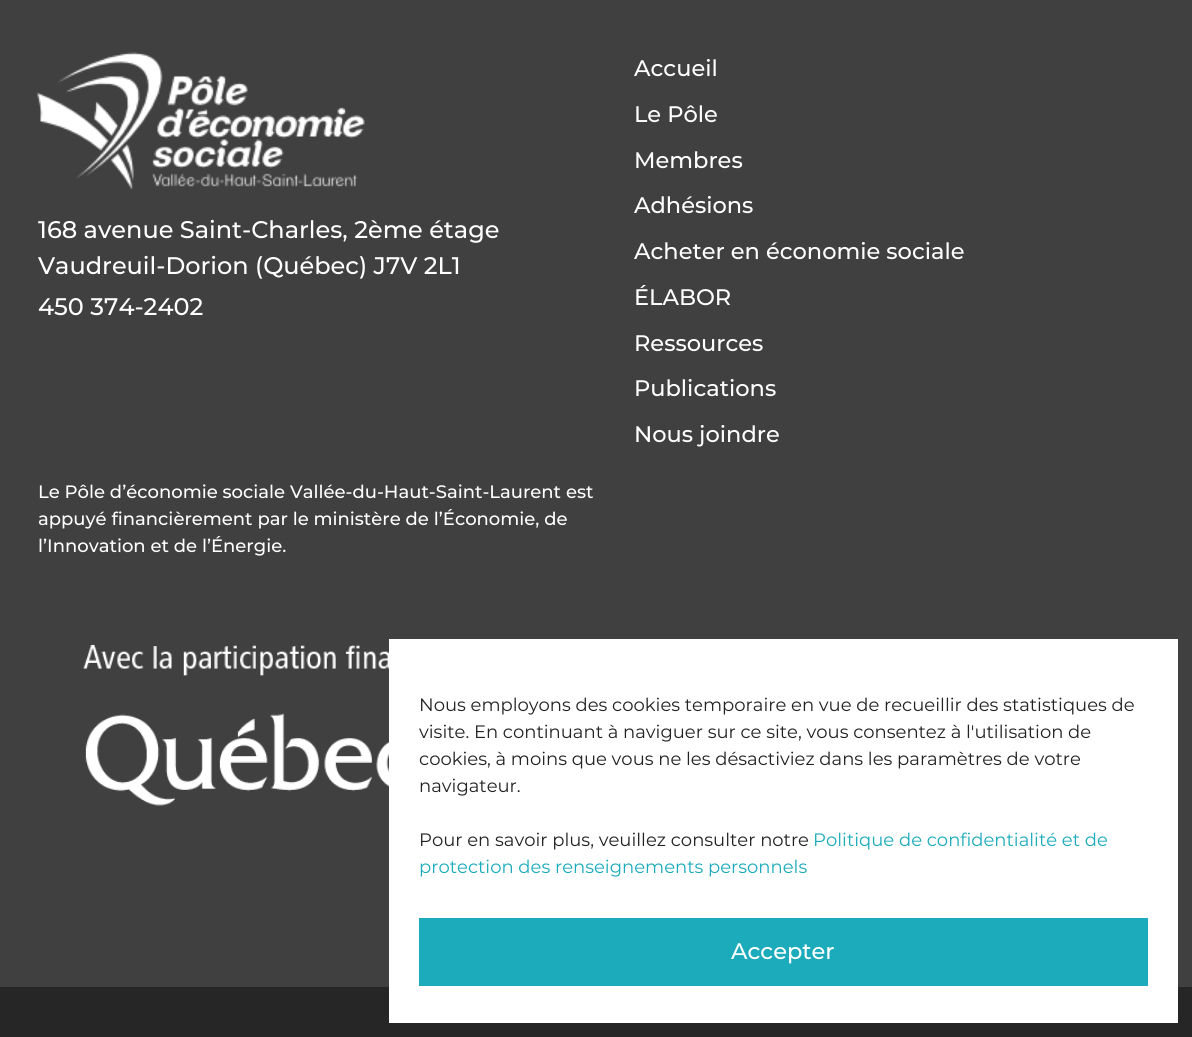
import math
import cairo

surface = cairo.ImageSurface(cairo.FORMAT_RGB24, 1192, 1037)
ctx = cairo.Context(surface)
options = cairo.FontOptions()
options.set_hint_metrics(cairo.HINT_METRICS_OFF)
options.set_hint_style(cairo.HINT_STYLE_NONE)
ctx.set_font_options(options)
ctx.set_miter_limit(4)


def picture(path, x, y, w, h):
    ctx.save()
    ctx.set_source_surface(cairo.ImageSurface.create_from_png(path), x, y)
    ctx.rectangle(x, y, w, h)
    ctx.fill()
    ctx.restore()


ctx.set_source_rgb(0.251, 0.251, 0.251)
ctx.paint()
picture("img1.png", 37, 52, 328, 138)
ctx.select_font_face("Montserrat Medium")
ctx.set_font_size(24)
ctx.set_source_rgb(1, 1, 1)
ctx.move_to(38, 238)
ctx.show_text("168 avenue Saint-Charles, 2ème étage")
ctx.move_to(38, 274)
ctx.show_text("Vaudreuil-Dorion (Québec) J7V 2L1")
ctx.move_to(38, 315)
ctx.show_text("450 374-2402")
ctx.set_font_size(22.5)
ctx.move_to(634, 76)
ctx.show_text("Accueil")
ctx.move_to(634, 122)
ctx.show_text("Le Pôle")
ctx.move_to(634, 168)
ctx.show_text("Membres")
ctx.move_to(634, 213)
ctx.show_text("Adhésions")
ctx.move_to(634, 259)
ctx.show_text("Acheter en économie sociale")
ctx.move_to(634, 305)
ctx.show_text("ÉLABOR")
ctx.move_to(634, 351)
ctx.show_text("Ressources")
ctx.move_to(634, 396)
ctx.show_text("Publications")
ctx.move_to(634, 442)
ctx.show_text("Nous joindre")
ctx.set_font_size(18)
ctx.move_to(38, 498)
ctx.show_text("Le Pôle d’économie sociale Vallée-du-Haut-Saint-Laurent est")
ctx.move_to(38, 525)
ctx.show_text("appuyé financièrement par le ministère de l’Économie, de")
ctx.move_to(38, 552)
ctx.show_text("l’Innovation et de l’Énergie.")
picture("img2.png", 83, 644, 306, 162)
ctx.set_source_rgb(0.149, 0.149, 0.149)
ctx.rectangle(0, 987, 1192, 50)
ctx.fill()
ctx.set_source_rgb(1, 1, 1)
ctx.rectangle(389, 639, 789, 384)
ctx.fill()
ctx.select_font_face("Montserrat")
ctx.set_source_rgb(0.133, 0.133, 0.133)
ctx.move_to(419, 711)
ctx.show_text("Nous employons des cookies temporaire en vue de recueillir des statistiques de")
ctx.move_to(419, 738)
ctx.show_text("visite. En continuant à naviguer sur ce site, vous consentez à l'utilisation de")
ctx.move_to(419, 765)
ctx.show_text("cookies, à moins que vous ne les désactiviez dans les paramètres de votre")
ctx.move_to(419, 792)
ctx.show_text("navigateur.")
ctx.move_to(419, 846)
ctx.show_text("Pour en savoir plus, veuillez consulter notre")
ctx.set_source_rgb(0.106, 0.671, 0.733)
ctx.move_to(813, 846)
ctx.show_text("Politique de confidentialité et de")
ctx.move_to(419, 873)
ctx.show_text("protection des renseignements personnels")
ctx.rectangle(419, 918, 729, 68)
ctx.fill()
ctx.select_font_face("Montserrat Medium")
ctx.set_font_size(22.5)
ctx.set_source_rgb(1, 1, 1)
ctx.move_to(731, 959)
ctx.show_text("Accepter")
surface.write_to_png("page.png")
